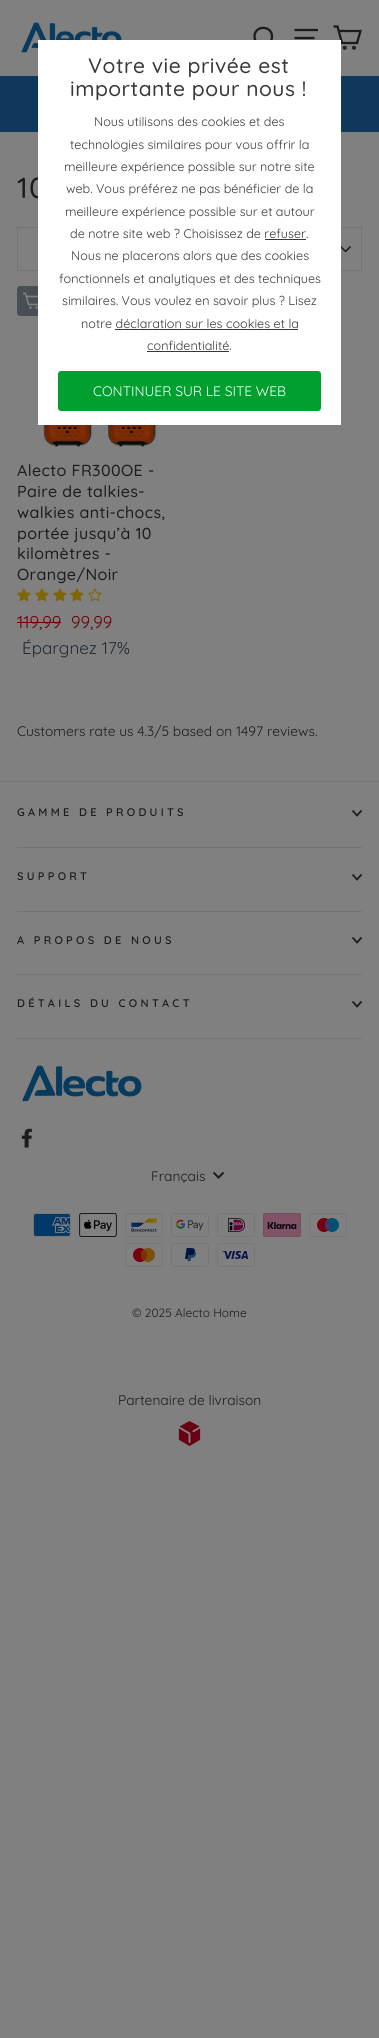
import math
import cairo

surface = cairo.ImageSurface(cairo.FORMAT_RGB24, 379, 2038)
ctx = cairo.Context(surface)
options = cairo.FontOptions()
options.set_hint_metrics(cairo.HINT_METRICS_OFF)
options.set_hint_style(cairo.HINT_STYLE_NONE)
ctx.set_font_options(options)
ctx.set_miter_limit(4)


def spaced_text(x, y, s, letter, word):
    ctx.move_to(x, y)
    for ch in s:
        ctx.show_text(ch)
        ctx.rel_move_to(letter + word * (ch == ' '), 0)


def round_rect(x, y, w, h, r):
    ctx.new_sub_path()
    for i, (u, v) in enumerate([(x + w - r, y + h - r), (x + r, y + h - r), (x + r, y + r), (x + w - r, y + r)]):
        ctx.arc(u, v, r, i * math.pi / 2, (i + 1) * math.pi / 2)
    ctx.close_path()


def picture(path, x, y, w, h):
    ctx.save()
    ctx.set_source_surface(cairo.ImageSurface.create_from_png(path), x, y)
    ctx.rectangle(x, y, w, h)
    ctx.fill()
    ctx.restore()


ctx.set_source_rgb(0.502, 0.502, 0.502)
ctx.paint()
picture("img1.png", 21, 22, 101, 31)
ctx.new_path()
ctx.move_to(272, 36.5)
ctx.curve_to(272, 48, 254.5, 48, 254.5, 36.5)
ctx.curve_to(254.5, 25, 272, 25, 272, 36.5)
ctx.close_path()
ctx.move_to(275.5, 48.5)
ctx.line_to(269.5, 42.5)
ctx.set_source_rgb(0.11, 0.11, 0.11)
ctx.set_line_width(2.3)
ctx.stroke()
ctx.new_path()
ctx.move_to(294.5, 30)
ctx.line_to(318, 30)
ctx.move_to(294.5, 38)
ctx.line_to(314.5, 38)
ctx.move_to(294.5, 46)
ctx.line_to(318, 46)
ctx.stroke()
ctx.new_path()
ctx.move_to(338.5, 31)
ctx.line_to(360.5, 31)
ctx.line_to(357, 43)
ctx.line_to(342, 43)
ctx.line_to(337.5, 26.5)
ctx.line_to(333.5, 26.5)
ctx.stroke()
ctx.set_source_rgb(0.059, 0.224, 0.361)
ctx.rectangle(0, 76, 379, 56)
ctx.fill()
ctx.select_font_face("Quicksand Medium")
ctx.set_font_size(29)
ctx.set_source_rgb(0.11, 0.11, 0.11)
spaced_text(17, 198, "10", 1, 0)
ctx.rectangle(17.5, 227.5, 165, 43)
ctx.set_source_rgb(0.455, 0.455, 0.443)
ctx.set_line_width(1)
ctx.stroke()
picture("img2.png", 341, 246, 10, 6)
ctx.rectangle(196.5, 227.5, 165, 43)
ctx.stroke()
picture("img3.png", 17, 286, 164, 164)
ctx.set_source_rgb(0.282, 0.306, 0.333)
round_rect(17, 286, 30, 30, 3)
ctx.fill()
ctx.set_source_rgb(1, 1, 1)
ctx.rectangle(38, 40, 303, 385)
ctx.fill()
ctx.set_font_size(21)
ctx.set_source_rgb(0.22, 0.22, 0.22)
spaced_text(88, 73, "Votre vie privée est", 0.5, 0)
spaced_text(70, 96, "importante pour nous !", 0.5, 0)
ctx.select_font_face("Quicksand")
ctx.set_font_size(12.6)
ctx.move_to(94, 126)
ctx.show_text("Nous utilisons des cookies et des")
ctx.move_to(70, 149)
ctx.show_text("technologies similaires pour vous offrir la")
ctx.move_to(64, 171)
ctx.show_text("meilleure expérience possible sur notre site")
ctx.move_to(66, 193)
ctx.show_text("web. Vous préférez ne pas bénéficier de la")
ctx.move_to(65, 216)
ctx.show_text("meilleure expérience possible sur et autour")
ctx.move_to(70, 238)
ctx.show_text("de notre site web ? Choisissez de refuser.")
ctx.rectangle(265, 239, 41, 1)
ctx.fill()
ctx.move_to(71, 260)
ctx.show_text("Nous ne placerons alors que des cookies")
ctx.move_to(59, 283)
ctx.show_text("fonctionnels et analytiques et des techniques")
ctx.move_to(62, 305)
ctx.show_text("similaires. Vous voulez en savoir plus ? Lisez")
ctx.move_to(81, 328)
ctx.show_text("notre déclaration sur les cookies et la")
ctx.rectangle(115, 329, 183, 1)
ctx.fill()
ctx.move_to(147, 350)
ctx.show_text("confidentialité.")
ctx.rectangle(147, 351, 82, 1)
ctx.fill()
ctx.set_source_rgb(0, 0.624, 0.184)
round_rect(58, 371, 263, 40, 3)
ctx.fill()
ctx.set_font_size(13.8)
ctx.set_source_rgb(1, 1, 1)
ctx.move_to(93, 396)
ctx.show_text("CONTINUER SUR LE SITE WEB")
ctx.new_path()
ctx.arc(344.7, 47.8, 0.9, 0, 2 * math.pi)
ctx.set_source_rgb(0.11, 0.11, 0.11)
ctx.set_line_width(2.3)
ctx.stroke()
ctx.arc(354, 47.8, 0.9, 0, 2 * math.pi)
ctx.stroke()
ctx.set_source_rgb(0.435, 0.435, 0.435)
ctx.rectangle(361, 226, 1, 1)
ctx.fill()
picture("img4.png", 22, 292, 16, 17)
ctx.select_font_face("Quicksand Medium")
ctx.set_font_size(16)
ctx.set_source_rgb(0.11, 0.11, 0.11)
spaced_text(17, 476, "Alecto FR300OE -", 0.4, 0)
spaced_text(17, 497, "Paire de talkies-", 0.4, 0)
spaced_text(17, 518, "walkies anti-chocs,", 0.4, 0)
spaced_text(17, 539, "portée jusqu’à 10", 0.4, 0)
spaced_text(17, 559, "kilomètres -", 0.4, 0)
spaced_text(17, 580, "Orange/Noir", 0.4, 0)
picture("img5.png", 17, 588, 14, 14)
picture("img5.png", 35, 588, 14, 14)
picture("img5.png", 53, 588, 14, 14)
picture("img5.png", 70, 588, 14, 14)
picture("img6.png", 88, 588, 14, 14)
ctx.select_font_face("Quicksand")
ctx.set_font_size(17)
ctx.set_source_rgb(0.416, 0, 0)
ctx.move_to(17, 628)
ctx.show_text("119,99")
ctx.rectangle(17, 622, 44, 1)
ctx.fill()
ctx.move_to(71, 628)
ctx.show_text("99,99")
ctx.set_source_rgb(0.129, 0.165, 0.212)
ctx.move_to(22, 654)
ctx.show_text("Épargnez 17%")
ctx.set_font_size(13.8)
ctx.set_source_rgb(0.11, 0.11, 0.11)
ctx.move_to(17, 736)
ctx.show_text("Customers rate us 4.3/5 based on 1497 reviews.")
ctx.set_source_rgb(0.455, 0.455, 0.443)
ctx.rectangle(0, 781, 379, 1)
ctx.fill()
ctx.select_font_face("Quicksand SemiBold")
ctx.set_font_size(11)
ctx.set_source_rgb(0.11, 0.11, 0.11)
spaced_text(17, 816, "GAMME DE PRODUITS", 3.3, 0)
ctx.new_path()
ctx.move_to(352.5, 810.5)
ctx.line_to(357, 815.5)
ctx.line_to(361.5, 810.5)
ctx.set_line_width(1.8)
ctx.stroke()
ctx.set_source_rgb(0.455, 0.455, 0.455)
ctx.rectangle(17, 847, 345, 1)
ctx.fill()
ctx.set_source_rgb(0.11, 0.11, 0.11)
spaced_text(17, 880, "SUPPORT", 3.3, 0)
ctx.new_path()
ctx.move_to(352.5, 874.5)
ctx.line_to(357, 879.5)
ctx.line_to(361.5, 874.5)
ctx.stroke()
ctx.set_source_rgb(0.455, 0.455, 0.455)
ctx.rectangle(17, 911, 345, 1)
ctx.fill()
ctx.set_source_rgb(0.11, 0.11, 0.11)
spaced_text(17, 944, "A PROPOS DE NOUS", 3.3, 0)
ctx.new_path()
ctx.move_to(352.5, 937.5)
ctx.line_to(357, 942.5)
ctx.line_to(361.5, 937.5)
ctx.stroke()
ctx.set_source_rgb(0.455, 0.455, 0.455)
ctx.rectangle(17, 974, 345, 1)
ctx.fill()
ctx.set_source_rgb(0.11, 0.11, 0.11)
spaced_text(17, 1007, "DÉTAILS DU CONTACT", 3.3, 0)
ctx.new_path()
ctx.move_to(352.5, 1001.5)
ctx.line_to(357, 1006.5)
ctx.line_to(361.5, 1001.5)
ctx.stroke()
ctx.set_source_rgb(0.455, 0.455, 0.455)
ctx.rectangle(17, 1038, 345, 1)
ctx.fill()
picture("img7.png", 22, 1065, 120, 37)
picture("img8.png", 21, 1128, 11, 20)
ctx.select_font_face("Quicksand")
ctx.set_font_size(13.8)
ctx.set_source_rgb(0.11, 0.11, 0.11)
ctx.move_to(151, 1181)
ctx.show_text("Français")
ctx.new_path()
ctx.move_to(213.5, 1172.5)
ctx.line_to(218.5, 1177.5)
ctx.line_to(223.5, 1172.5)
ctx.set_line_width(2)
ctx.stroke()
picture("img9.png", 33, 1213, 38, 24)
picture("img10.png", 79, 1213, 38, 24)
picture("img11.png", 125, 1213, 38, 24)
picture("img12.png", 171, 1213, 38, 24)
picture("img13.png", 217, 1213, 38, 24)
picture("img14.png", 263, 1213, 38, 24)
picture("img15.png", 309, 1213, 38, 24)
picture("img16.png", 125, 1243, 38, 24)
picture("img17.png", 171, 1243, 38, 24)
picture("img18.png", 217, 1243, 38, 24)
ctx.set_font_size(12)
ctx.move_to(132, 1317)
ctx.show_text("© 2025 Alecto Home")
ctx.set_font_size(13.8)
ctx.move_to(118, 1405)
ctx.show_text("Partenaire de livraison")
picture("img19.png", 178, 1421, 23, 25)
surface.write_to_png("page.png")
